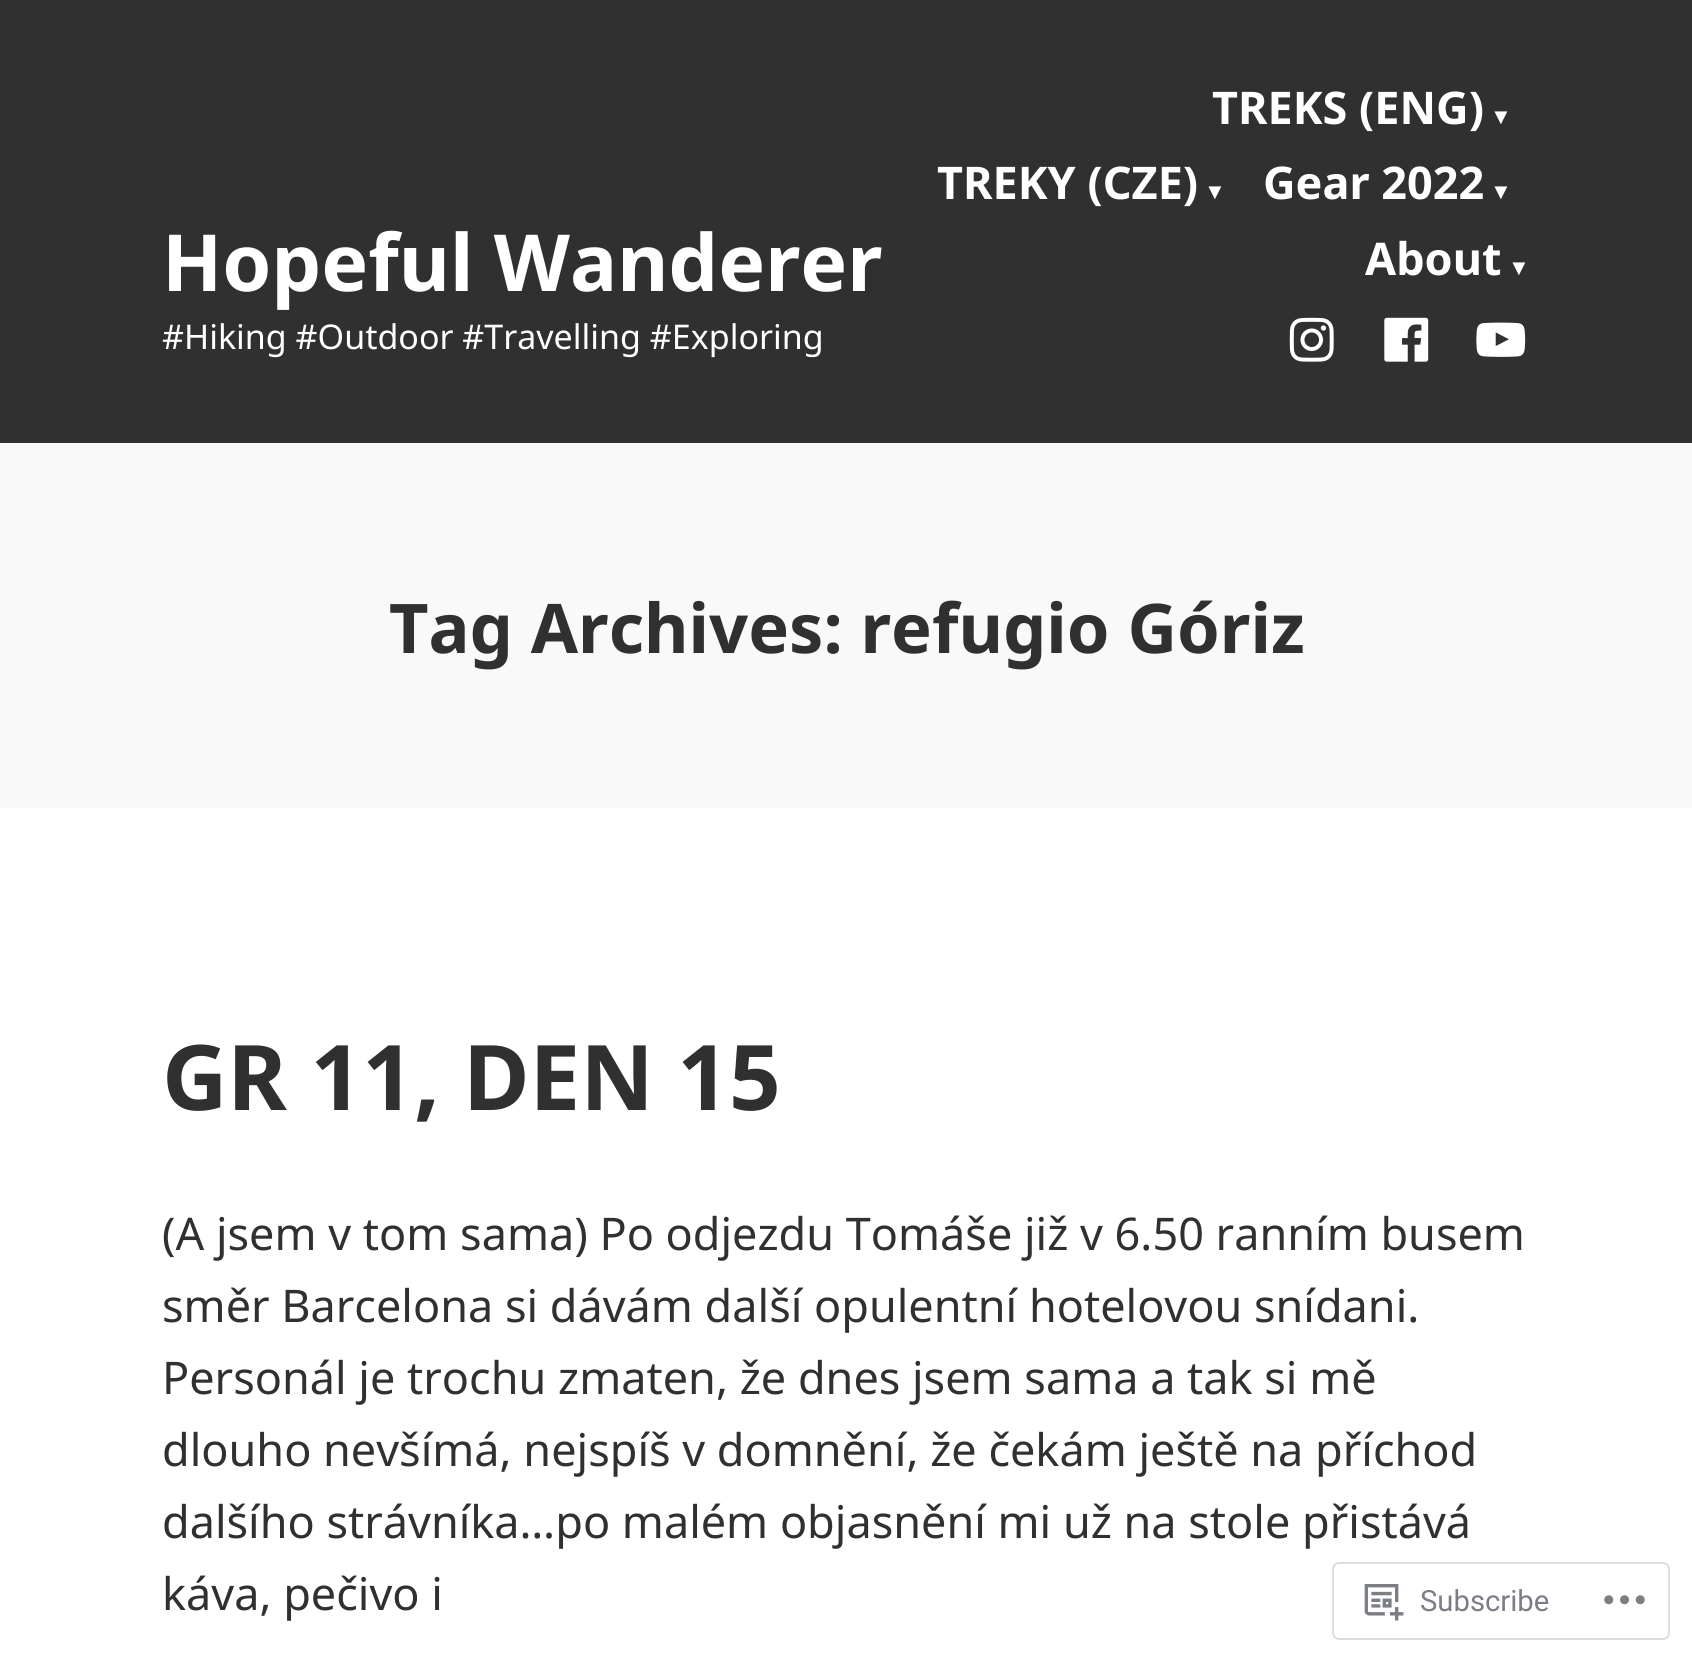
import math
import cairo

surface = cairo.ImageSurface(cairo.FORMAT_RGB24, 1692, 1661)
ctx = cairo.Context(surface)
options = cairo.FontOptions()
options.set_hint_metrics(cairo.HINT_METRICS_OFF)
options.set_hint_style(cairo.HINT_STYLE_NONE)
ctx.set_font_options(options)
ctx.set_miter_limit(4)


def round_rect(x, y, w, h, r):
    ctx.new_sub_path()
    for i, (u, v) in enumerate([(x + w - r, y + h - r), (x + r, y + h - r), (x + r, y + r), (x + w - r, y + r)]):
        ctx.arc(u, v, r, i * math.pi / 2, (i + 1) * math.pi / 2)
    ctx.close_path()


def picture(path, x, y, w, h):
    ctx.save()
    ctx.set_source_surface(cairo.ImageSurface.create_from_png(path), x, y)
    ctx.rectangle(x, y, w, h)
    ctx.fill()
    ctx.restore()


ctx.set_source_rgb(1, 1, 1)
ctx.paint()
ctx.set_source_rgb(0.188, 0.188, 0.188)
ctx.rectangle(0, 0, 1692, 443)
ctx.fill()
ctx.select_font_face("Noto Sans", cairo.FONT_SLANT_NORMAL, cairo.FONT_WEIGHT_BOLD)
ctx.set_font_size(78.75)
ctx.set_source_rgb(1, 1, 1)
ctx.move_to(162, 291)
ctx.show_text("Hopeful Wanderer")
ctx.set_font_size(45)
ctx.move_to(1212, 124)
ctx.show_text("TREKS (ENG)")
ctx.select_font_face("Liberation Sans", cairo.FONT_SLANT_NORMAL, cairo.FONT_WEIGHT_BOLD)
ctx.set_font_size(22)
ctx.move_to(1490, 124)
ctx.show_text("▼")
ctx.select_font_face("Noto Sans", cairo.FONT_SLANT_NORMAL, cairo.FONT_WEIGHT_BOLD)
ctx.set_font_size(45)
ctx.move_to(937, 199)
ctx.show_text("TREKY (CZE)")
ctx.select_font_face("Liberation Sans", cairo.FONT_SLANT_NORMAL, cairo.FONT_WEIGHT_BOLD)
ctx.set_font_size(22)
ctx.move_to(1204, 199)
ctx.show_text("▼")
ctx.select_font_face("Noto Sans", cairo.FONT_SLANT_NORMAL, cairo.FONT_WEIGHT_BOLD)
ctx.set_font_size(45)
ctx.move_to(1263, 199)
ctx.show_text("Gear 2022")
ctx.select_font_face("Liberation Sans", cairo.FONT_SLANT_NORMAL, cairo.FONT_WEIGHT_BOLD)
ctx.set_font_size(22)
ctx.move_to(1490, 199)
ctx.show_text("▼")
ctx.select_font_face("Noto Sans", cairo.FONT_SLANT_NORMAL, cairo.FONT_WEIGHT_BOLD)
ctx.set_font_size(45)
ctx.move_to(1365, 275)
ctx.show_text("About")
ctx.select_font_face("Liberation Sans", cairo.FONT_SLANT_NORMAL, cairo.FONT_WEIGHT_BOLD)
ctx.set_font_size(22)
ctx.move_to(1508, 275)
ctx.show_text("▼")
ctx.select_font_face("Noto Sans")
ctx.set_font_size(34)
ctx.move_to(162, 349)
ctx.show_text("#Hiking #Outdoor #Travelling #Exploring")
picture("img1.png", 1289, 317, 45, 45)
picture("img2.png", 1384, 317, 45, 45)
picture("img3.png", 1476, 322, 50, 35)
ctx.set_source_rgb(0.973, 0.973, 0.973)
ctx.rectangle(0, 443, 1692, 365)
ctx.fill()
ctx.select_font_face("Noto Sans", cairo.FONT_SLANT_NORMAL, cairo.FONT_WEIGHT_BOLD)
ctx.set_font_size(68.5)
ctx.set_source_rgb(0.188, 0.188, 0.188)
ctx.move_to(389, 653)
ctx.show_text("Tag Archives: refugio Góriz")
ctx.set_font_size(90.5)
ctx.move_to(162, 1110)
ctx.show_text("GR 11, DEN 15")
ctx.select_font_face("Noto Sans")
ctx.set_font_size(45)
ctx.move_to(162, 1250)
ctx.show_text("(A jsem v tom sama) Po odjezdu Tomáše již v 6.50 ranním busem")
ctx.move_to(162, 1322)
ctx.show_text("směr Barcelona si dávám další opulentní hotelovou snídani.")
ctx.move_to(162, 1394)
ctx.show_text("Personál je trochu zmaten, že dnes jsem sama a tak si mě")
ctx.move_to(162, 1466)
ctx.show_text("dlouho nevšímá, nejspíš v domnění, že čekám ještě na příchod")
ctx.move_to(162, 1538)
ctx.show_text("dalšího strávníka…po malém objasnění mi už na stole přistává")
ctx.move_to(162, 1610)
ctx.show_text("káva, pečivo i")
round_rect(1333, 1563, 336, 76, 6)
ctx.set_source_rgb(0.867, 0.867, 0.875)
ctx.stroke()
picture("img4.png", 1364, 1584, 40, 37)
ctx.select_font_face("Roboto")
ctx.set_font_size(29.25)
ctx.set_source_rgb(0.482, 0.498, 0.522)
ctx.move_to(1420, 1611)
ctx.show_text("Subscribe")
picture("img5.png", 1604, 1595, 41, 10)
surface.write_to_png("page.png")
